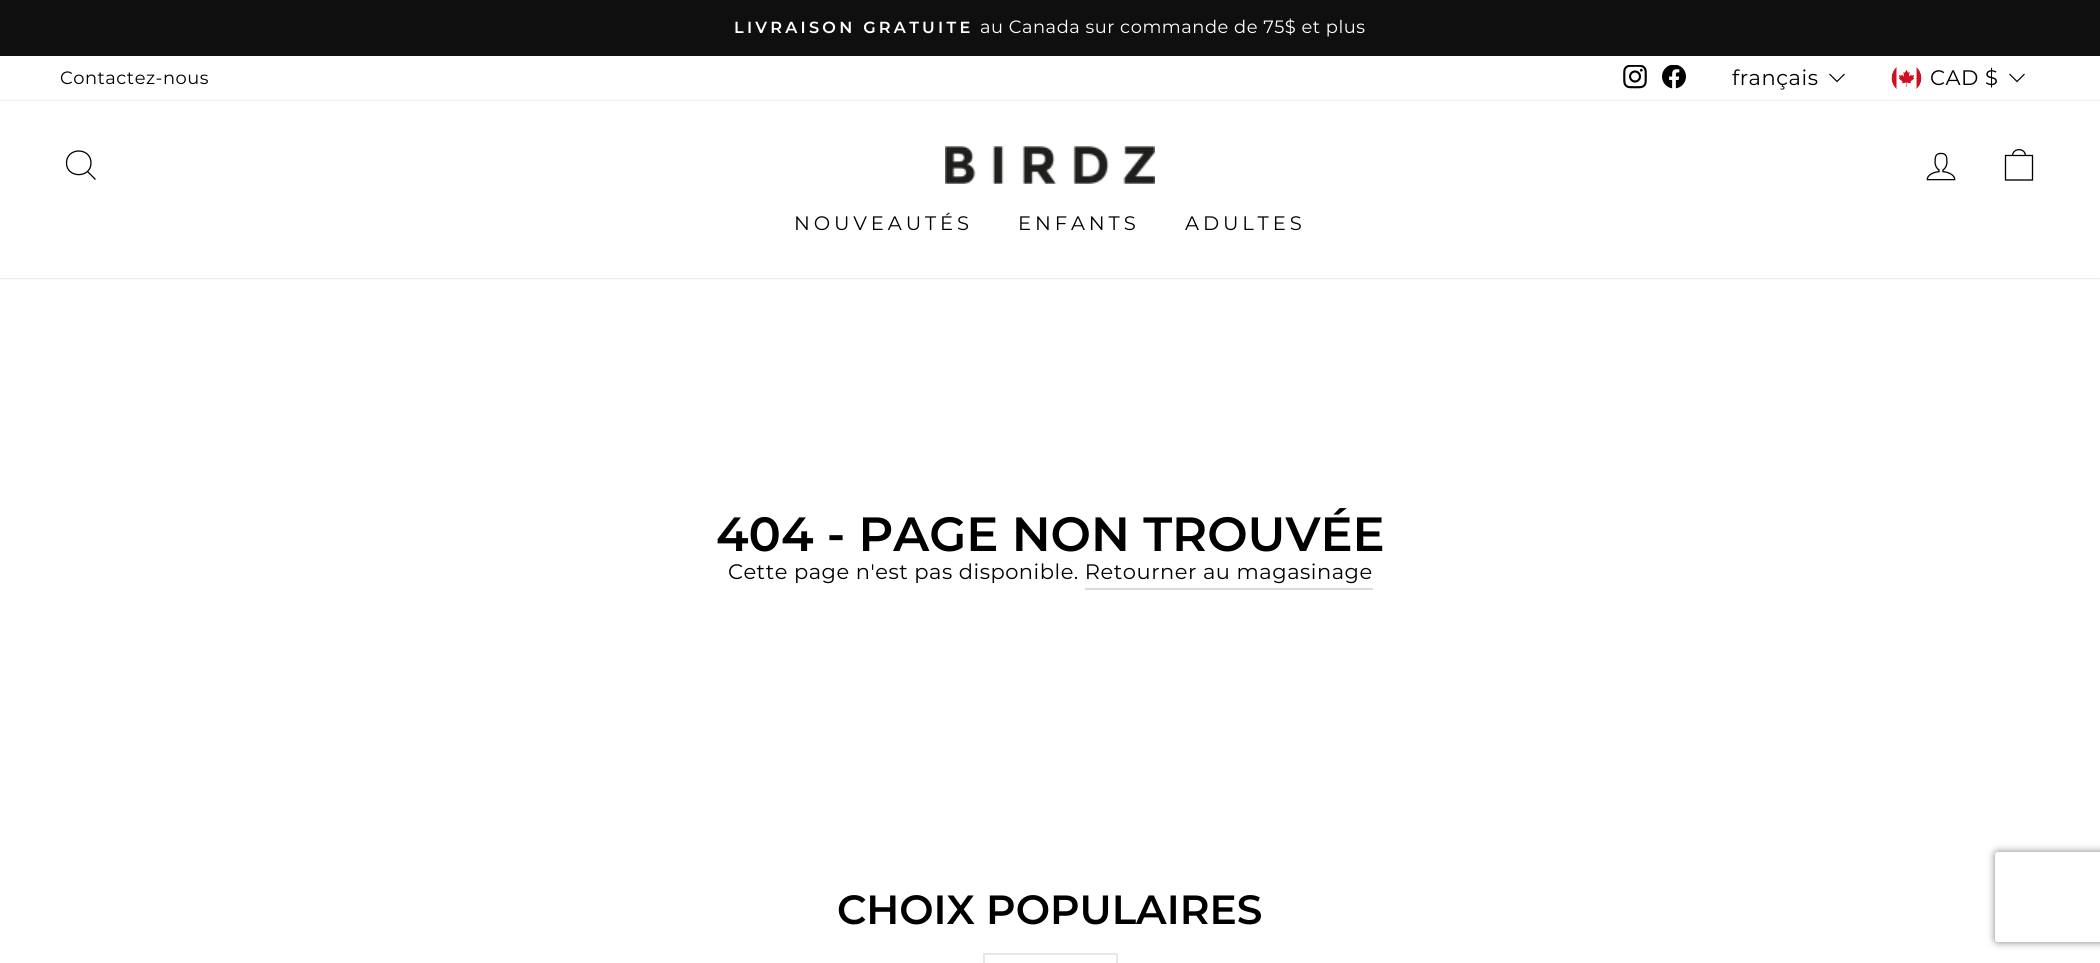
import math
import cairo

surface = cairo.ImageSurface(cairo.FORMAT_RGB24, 2100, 963)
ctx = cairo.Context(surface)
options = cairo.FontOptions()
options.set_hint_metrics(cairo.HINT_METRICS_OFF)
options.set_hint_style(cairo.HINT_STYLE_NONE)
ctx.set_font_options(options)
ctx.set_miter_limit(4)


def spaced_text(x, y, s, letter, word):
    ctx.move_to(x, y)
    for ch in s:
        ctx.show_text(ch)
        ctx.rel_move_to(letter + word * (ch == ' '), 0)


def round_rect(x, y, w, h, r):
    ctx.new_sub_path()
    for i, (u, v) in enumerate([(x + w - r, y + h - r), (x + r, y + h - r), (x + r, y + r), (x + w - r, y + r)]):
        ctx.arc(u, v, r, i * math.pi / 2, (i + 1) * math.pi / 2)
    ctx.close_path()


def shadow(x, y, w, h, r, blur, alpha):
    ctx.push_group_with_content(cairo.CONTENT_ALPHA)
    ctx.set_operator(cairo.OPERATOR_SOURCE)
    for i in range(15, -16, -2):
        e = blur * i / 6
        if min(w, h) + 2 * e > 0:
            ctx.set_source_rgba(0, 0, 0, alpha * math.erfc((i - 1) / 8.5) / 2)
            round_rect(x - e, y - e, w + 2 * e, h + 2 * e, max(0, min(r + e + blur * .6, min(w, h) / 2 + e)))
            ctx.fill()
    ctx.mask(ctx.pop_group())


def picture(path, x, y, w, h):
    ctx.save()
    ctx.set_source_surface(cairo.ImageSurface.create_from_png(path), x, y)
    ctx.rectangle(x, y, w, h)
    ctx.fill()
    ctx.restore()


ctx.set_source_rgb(1, 1, 1)
ctx.paint()
ctx.set_source_rgb(0.059, 0.059, 0.059)
ctx.rectangle(0, 0, 2100, 56)
ctx.fill()
ctx.select_font_face("Montserrat SemiBold")
ctx.set_font_size(16.1)
ctx.set_source_rgb(1, 1, 1)
spaced_text(734, 33, "LIVRAISON GRATUITE", 3.25, 0)
ctx.select_font_face("Montserrat")
ctx.set_font_size(17.85)
spaced_text(980, 33, "au Canada sur commande de 75$ et plus", 0.52, 0)
ctx.set_source_rgb(0, 0, 0)
spaced_text(60, 84, "Contactez-nous", 0.52, 0)
picture("img1.png", 1623, 65, 24, 24)
picture("img2.png", 1662, 65, 24, 24)
ctx.set_font_size(21)
spaced_text(1732, 85, "français", 0.52, 0)
ctx.new_path()
ctx.move_to(1829.5, 74)
ctx.line_to(1837, 81.5)
ctx.line_to(1844.5, 74)
ctx.set_line_width(1.2)
ctx.stroke()
picture("img3.png", 1891, 67, 31, 22)
spaced_text(1930, 85, "CAD $", 0.52, 0)
ctx.new_path()
ctx.move_to(2009.5, 74)
ctx.line_to(2017, 81.5)
ctx.line_to(2024.5, 74)
ctx.stroke()
ctx.set_source_rgb(0, 0, 0)
shadow(0, 101, 2100, 177, 0, 1, 0.2)
ctx.set_source_rgb(1, 1, 1)
ctx.rectangle(0, 101, 2100, 177)
ctx.fill()
ctx.new_path()
ctx.move_to(91, 163)
ctx.curve_to(91, 178.5, 66.5, 178.5, 66.5, 163)
ctx.curve_to(66.5, 147, 91, 147, 91, 163)
ctx.close_path()
ctx.move_to(95.5, 179.5)
ctx.line_to(87.5, 171.5)
ctx.set_source_rgb(0, 0, 0)
ctx.set_line_width(1.3)
ctx.stroke()
picture("img4.png", 945, 146, 210, 38)
picture("img5.png", 1926, 152, 30, 29)
ctx.new_path()
ctx.move_to(2005.5, 155.5)
ctx.line_to(2032.5, 155.5)
ctx.line_to(2032.5, 180)
ctx.line_to(2005.5, 180)
ctx.close_path()
ctx.move_to(2012.5, 156)
ctx.curve_to(2012.5, 147.5, 2025.5, 147.5, 2025.5, 156)
ctx.stroke()
ctx.set_font_size(19.5)
spaced_text(794, 230, "NOUVEAUTÉS", 3.9, 0)
spaced_text(1018, 230, "ENFANTS", 3.9, 0)
spaced_text(1185, 230, "ADULTES", 3.9, 0)
ctx.select_font_face("Montserrat SemiBold")
ctx.set_font_size(48)
ctx.move_to(716, 551)
ctx.show_text("404 - PAGE NON TROUVÉE")
ctx.select_font_face("Montserrat")
ctx.set_font_size(21)
spaced_text(728, 579, "Cette page n'est pas disponible. Retourner au magasinage", 0.52, 0)
ctx.set_source_rgb(0.851, 0.851, 0.851)
ctx.rectangle(1085, 588, 288, 2)
ctx.fill()
ctx.select_font_face("Montserrat SemiBold")
ctx.set_font_size(40.75)
ctx.set_source_rgb(0, 0, 0)
ctx.move_to(837, 924)
ctx.show_text("CHOIX POPULAIRES")
ctx.rectangle(984, 954, 133, 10)
ctx.set_source_rgb(0.91, 0.91, 0.882)
ctx.set_line_width(2)
ctx.stroke()
ctx.save()
ctx.set_fill_rule(cairo.FILL_RULE_EVEN_ODD)
ctx.new_path()
ctx.move_to(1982, 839)
ctx.line_to(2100, 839)
ctx.line_to(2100, 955)
ctx.line_to(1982, 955)
ctx.close_path()
ctx.move_to(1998, 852)
ctx.line_to(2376, 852)
ctx.curve_to(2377.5, 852, 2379, 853.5, 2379, 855)
ctx.line_to(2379, 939)
ctx.curve_to(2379, 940.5, 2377.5, 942, 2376, 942)
ctx.line_to(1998, 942)
ctx.curve_to(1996.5, 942, 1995, 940.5, 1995, 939)
ctx.line_to(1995, 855)
ctx.curve_to(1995, 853.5, 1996.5, 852, 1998, 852)
ctx.close_path()
ctx.clip()
ctx.set_source_rgb(0.502, 0.502, 0.502)
shadow(1995, 852, 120, 90, 3, 4, 1)
ctx.restore()
surface.write_to_png("page.png")
